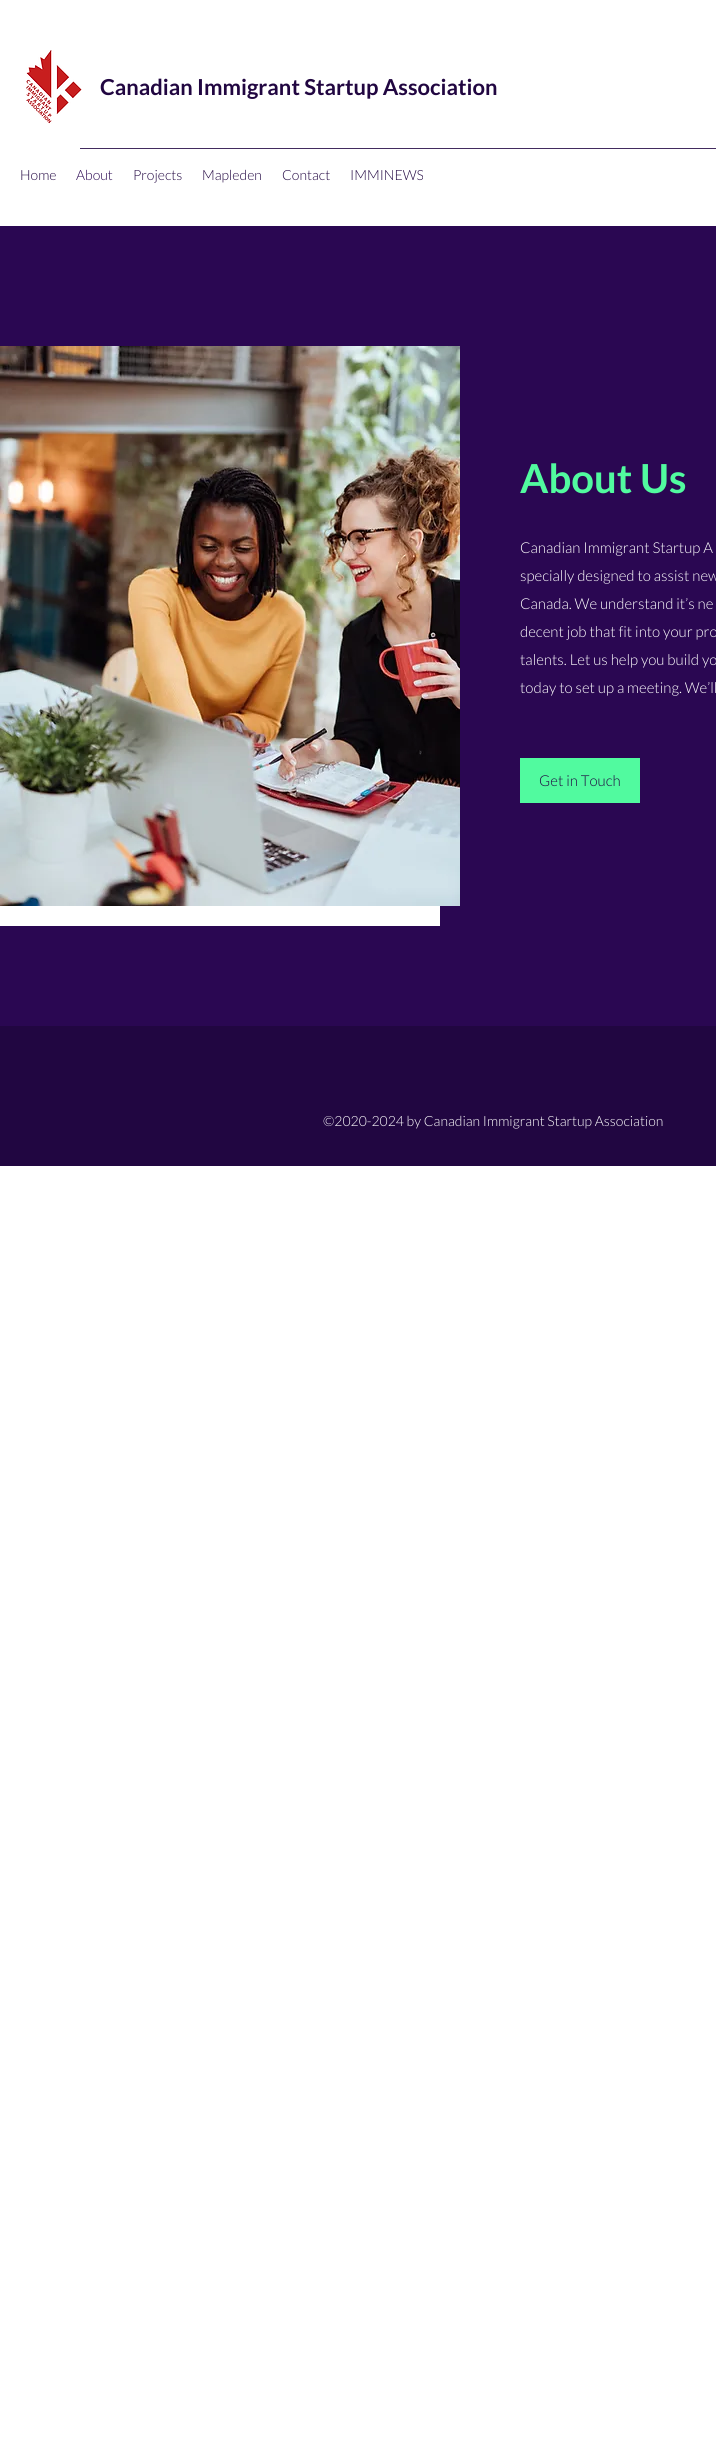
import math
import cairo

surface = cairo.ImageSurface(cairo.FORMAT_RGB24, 716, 2453)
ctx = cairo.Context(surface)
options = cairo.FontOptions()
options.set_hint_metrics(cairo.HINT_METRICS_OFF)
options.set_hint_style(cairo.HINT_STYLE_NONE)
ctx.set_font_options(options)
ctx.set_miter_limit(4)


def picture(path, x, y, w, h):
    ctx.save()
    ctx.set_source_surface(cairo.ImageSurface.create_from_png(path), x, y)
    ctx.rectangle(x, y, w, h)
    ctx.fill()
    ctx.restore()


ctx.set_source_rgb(1, 1, 1)
ctx.paint()
picture("img1.png", 26, 50, 56, 74)
ctx.select_font_face("Lato", cairo.FONT_SLANT_NORMAL, cairo.FONT_WEIGHT_BOLD)
ctx.set_font_size(22)
ctx.set_source_rgb(0.129, 0.024, 0.255)
ctx.move_to(100, 95)
ctx.show_text("Canadian Immigrant Startup Association")
ctx.set_source_rgb(0.259, 0.169, 0.369)
ctx.rectangle(80, 148, 636, 1)
ctx.fill()
ctx.select_font_face("Lato Light")
ctx.set_font_size(14)
ctx.set_source_rgb(0.129, 0.024, 0.255)
ctx.move_to(20, 180)
ctx.show_text("Home")
ctx.set_source_rgb(0.165, 0.031, 0.322)
ctx.move_to(76, 180)
ctx.show_text("About")
ctx.set_source_rgb(0.129, 0.024, 0.255)
ctx.move_to(133, 180)
ctx.show_text("Projects")
ctx.move_to(202, 180)
ctx.show_text("Mapleden")
ctx.move_to(282, 180)
ctx.show_text("Contact")
ctx.move_to(350, 180)
ctx.show_text("IMMINEWS")
ctx.set_source_rgb(0.165, 0.031, 0.322)
ctx.rectangle(0, 226, 716, 800)
ctx.fill()
picture("img2.png", 0, 346, 460, 560)
ctx.set_source_rgb(1, 1, 1)
ctx.rectangle(0, 906, 440, 20)
ctx.fill()
ctx.select_font_face("Lato", cairo.FONT_SLANT_NORMAL, cairo.FONT_WEIGHT_BOLD)
ctx.set_font_size(40)
ctx.set_source_rgb(0.318, 0.98, 0.624)
ctx.move_to(520, 493)
ctx.show_text("About Us")
ctx.select_font_face("Lato Light")
ctx.set_font_size(15)
ctx.set_source_rgb(1, 1, 1)
ctx.move_to(520, 553)
ctx.show_text("Canadian Immigrant Startup A")
ctx.move_to(520, 581)
ctx.show_text("specially designed to assist new")
ctx.move_to(520, 609)
ctx.show_text("Canada. We understand it’s ne")
ctx.move_to(520, 637)
ctx.show_text("decent job that fit into your pro")
ctx.move_to(520, 665)
ctx.show_text("talents. Let us help you build yo")
ctx.move_to(520, 693)
ctx.show_text("today to set up a meeting. We’ll")
ctx.set_source_rgb(0.318, 0.98, 0.624)
ctx.rectangle(520, 758, 120, 45)
ctx.fill()
ctx.set_source_rgb(0.129, 0.024, 0.255)
ctx.move_to(539, 786)
ctx.show_text("Get in Touch")
ctx.rectangle(0, 1026, 716, 140)
ctx.fill()
ctx.set_font_size(14)
ctx.set_source_rgb(1, 1, 1)
ctx.move_to(323, 1126)
ctx.show_text("©2020-2024 by Canadian Immigrant Startup Association")
surface.write_to_png("page.png")
